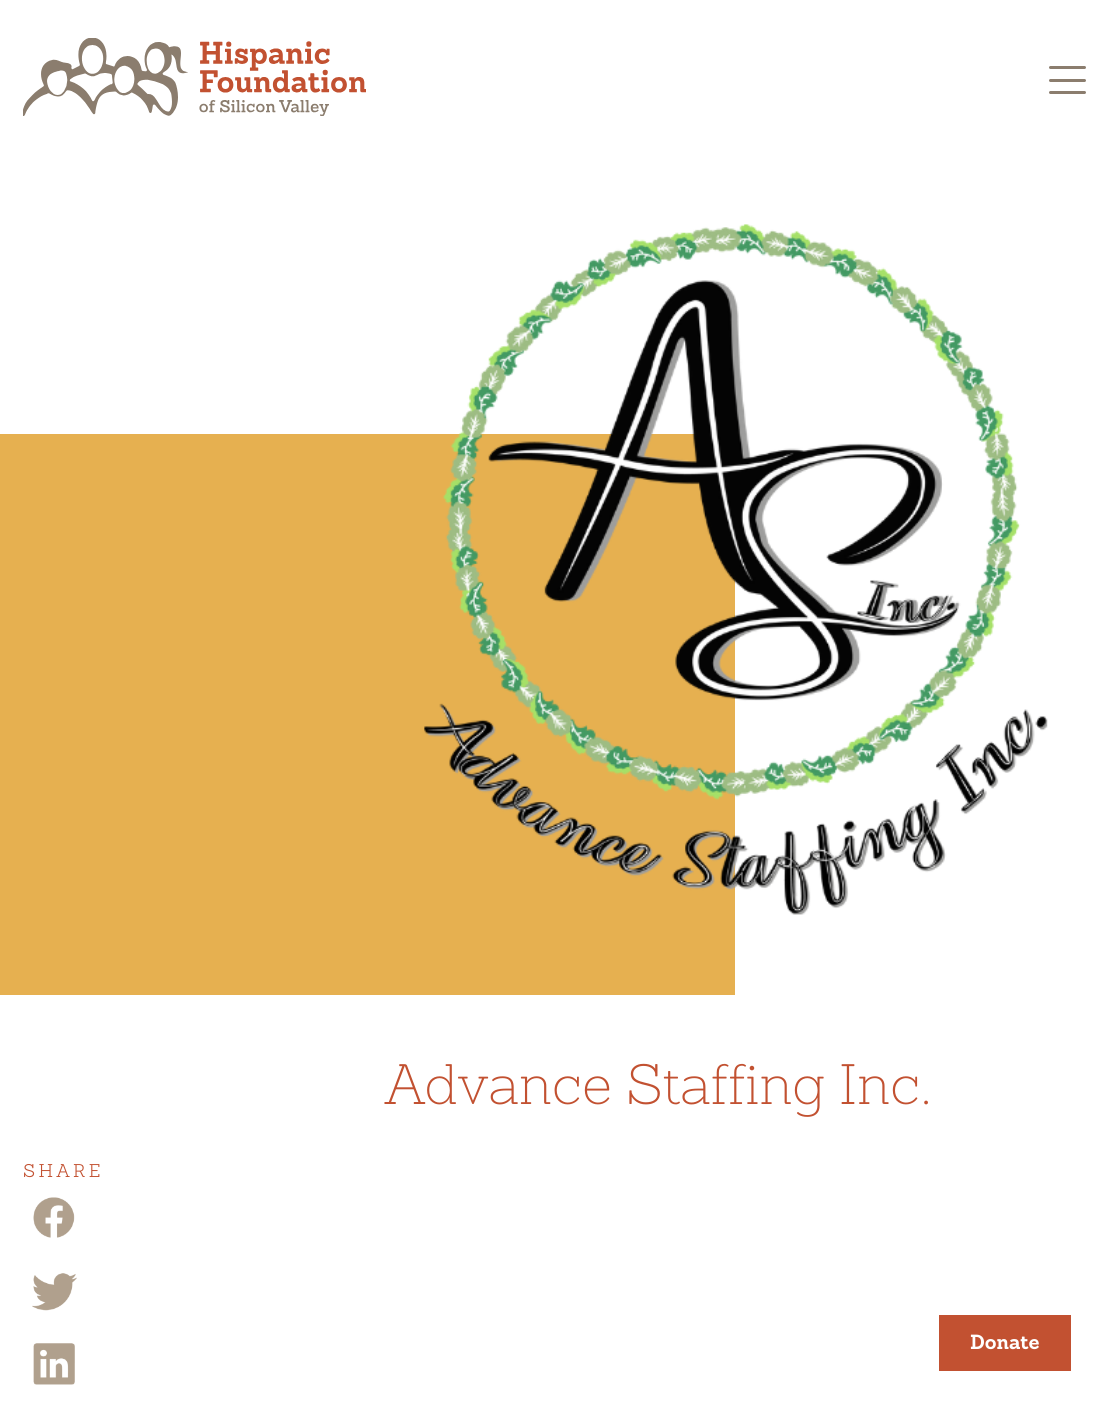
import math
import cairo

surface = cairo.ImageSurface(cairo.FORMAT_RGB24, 1108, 1408)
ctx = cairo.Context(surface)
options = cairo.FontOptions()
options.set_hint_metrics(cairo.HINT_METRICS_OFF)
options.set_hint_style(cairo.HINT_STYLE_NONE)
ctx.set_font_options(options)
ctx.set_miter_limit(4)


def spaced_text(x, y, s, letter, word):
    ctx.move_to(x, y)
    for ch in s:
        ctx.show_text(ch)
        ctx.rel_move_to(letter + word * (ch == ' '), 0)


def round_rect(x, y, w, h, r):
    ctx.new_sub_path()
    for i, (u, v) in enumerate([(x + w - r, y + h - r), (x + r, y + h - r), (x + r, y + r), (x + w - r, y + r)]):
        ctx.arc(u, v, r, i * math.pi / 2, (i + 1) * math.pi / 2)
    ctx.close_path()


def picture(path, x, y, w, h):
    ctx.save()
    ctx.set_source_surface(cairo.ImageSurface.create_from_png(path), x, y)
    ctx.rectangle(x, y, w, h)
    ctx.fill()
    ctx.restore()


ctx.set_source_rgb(1, 1, 1)
ctx.paint()
picture("img1.png", 23, 38, 343, 78)
ctx.set_source_rgb(0.545, 0.49, 0.431)
round_rect(1049, 66, 37, 3, 1.5)
ctx.fill()
round_rect(1049, 79, 37, 3, 1.5)
ctx.fill()
round_rect(1049, 91, 37, 3, 1.5)
ctx.fill()
ctx.set_source_rgb(0.902, 0.69, 0.314)
ctx.rectangle(0, 434, 735, 561)
ctx.fill()
picture("img2.png", 424, 224, 624, 691)
ctx.select_font_face("Sanchez ExtraLight")
ctx.set_font_size(55.5)
ctx.set_source_rgb(0.761, 0.318, 0.192)
ctx.move_to(385, 1104)
ctx.show_text("Advance Staffing Inc.")
ctx.select_font_face("Sanchez Light")
ctx.set_font_size(18)
spaced_text(23, 1177, "SHARE", 3.5, 0)
picture("img3.png", 33, 1197, 42, 41)
picture("img4.png", 32, 1273, 45, 38)
picture("img5.png", 33, 1343, 42, 42)
ctx.rectangle(939, 1315, 132, 56)
ctx.fill()
ctx.select_font_face("Sanchez", cairo.FONT_SLANT_NORMAL, cairo.FONT_WEIGHT_BOLD)
ctx.set_font_size(20)
ctx.set_source_rgb(1, 1, 1)
ctx.move_to(970, 1349)
ctx.show_text("Donate")
surface.write_to_png("page.png")
